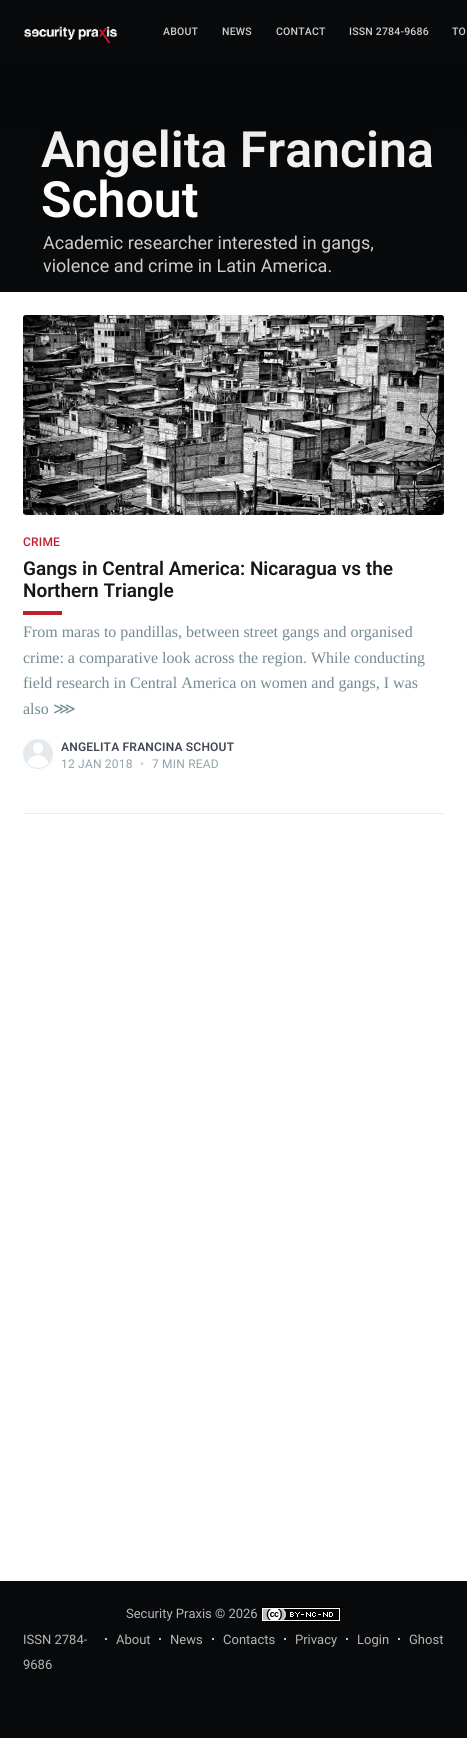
import math
import cairo

surface = cairo.ImageSurface(cairo.FORMAT_RGB24, 467, 1738)
ctx = cairo.Context(surface)
options = cairo.FontOptions()
options.set_hint_metrics(cairo.HINT_METRICS_OFF)
options.set_hint_style(cairo.HINT_STYLE_NONE)
ctx.set_font_options(options)
ctx.set_miter_limit(4)


def spaced_text(x, y, s, letter, word):
    ctx.move_to(x, y)
    for ch in s:
        ctx.show_text(ch)
        ctx.rel_move_to(letter + word * (ch == ' '), 0)


def picture(path, x, y, w, h):
    ctx.save()
    ctx.set_source_surface(cairo.ImageSurface.create_from_png(path), x, y)
    ctx.rectangle(x, y, w, h)
    ctx.fill()
    ctx.restore()


ctx.set_source_rgb(1, 1, 1)
ctx.paint()
ctx.set_source_rgb(0.035, 0.039, 0.043)
ctx.rectangle(0, 0, 467, 64)
ctx.fill()
picture("img1.png", 24, 26, 94, 17)
ctx.select_font_face("Roboto Medium")
ctx.set_font_size(10.5)
ctx.set_source_rgb(0.808, 0.808, 0.808)
spaced_text(163, 35, "ABOUT", 0.2, 0)
spaced_text(222, 35, "NEWS", 0.2, 0)
spaced_text(276, 35, "CONTACT", 0.2, 0)
spaced_text(349, 35, "ISSN 2784-9686", 0.2, 0)
spaced_text(452, 35, "TO", 0.2, 0)
gradient = cairo.LinearGradient(234, 64, 234, 292)
gradient.add_color_stop_rgba(0, 0.027, 0.031, 0.035, 1)
gradient.add_color_stop_rgba(1, 0.035, 0.039, 0.043, 1)
ctx.set_source(gradient)
ctx.rectangle(0, 64, 467, 228)
ctx.fill()
ctx.select_font_face("Roboto SemiBold")
ctx.set_font_size(50)
ctx.set_source_rgb(1, 1, 1)
ctx.move_to(41, 167)
ctx.show_text("Angelita Francina")
ctx.move_to(41, 217)
ctx.show_text("Schout")
ctx.select_font_face("Roboto")
ctx.set_font_size(18)
ctx.set_source_rgb(0.808, 0.808, 0.808)
ctx.move_to(43, 249)
ctx.show_text("Academic researcher interested in gangs,")
ctx.move_to(43, 272)
ctx.show_text("violence and crime in Latin America.")
gradient = cairo.LinearGradient(234, 64, 234, 204)
gradient.add_color_stop_rgba(0, 0, 0, 0, 0.15)
gradient.add_color_stop_rgba(1, 0, 0, 0, 0)
ctx.set_source(gradient)
ctx.rectangle(42, 129, 390, 55)
ctx.fill()
ctx.set_source_rgb(0.914, 0.933, 0.945)
ctx.rectangle(23, 813, 421, 1)
ctx.fill()
picture("img2.png", 23, 315, 421, 200)
ctx.select_font_face("Roboto Medium")
ctx.set_font_size(12)
ctx.set_source_rgb(0.749, 0.118, 0.176)
spaced_text(23, 546, "CRIME", 0.2, 0)
ctx.select_font_face("Roboto SemiBold")
ctx.set_font_size(19)
ctx.set_source_rgb(0.082, 0.09, 0.102)
ctx.move_to(23, 575)
ctx.show_text("Gangs in Central America: Nicaragua vs the")
ctx.move_to(23, 597)
ctx.show_text("Northern Triangle")
ctx.set_source_rgb(0.749, 0.118, 0.176)
ctx.rectangle(23, 611, 39, 4)
ctx.fill()
ctx.select_font_face("Liberation Serif")
ctx.set_font_size(16)
ctx.set_source_rgb(0.451, 0.541, 0.58)
ctx.move_to(23, 637)
ctx.show_text("From maras to pandillas, between street gangs and organised")
ctx.move_to(23, 663)
ctx.show_text("crime: a comparative look across the region. While conducting")
ctx.move_to(23, 688)
ctx.show_text("field research in Central America on women and gangs, I was")
ctx.move_to(23, 714)
ctx.show_text("also")
ctx.select_font_face("DejaVu Sans")
ctx.move_to(53, 714)
ctx.show_text("⋙")
ctx.save()
ctx.rectangle(23, 292, 421, 545)
ctx.clip()
ctx.set_source_rgb(0.89, 0.914, 0.929)
ctx.arc(38, 754, 17, 0, 2 * math.pi)
ctx.fill()
ctx.restore()
ctx.save()
ctx.rectangle(23, 315, 421, 498)
ctx.clip()
ctx.arc(38, 754, 16, 0, 2 * math.pi)
ctx.set_source_rgb(1, 1, 1)
ctx.stroke()
ctx.restore()
picture("img3.png", 27, 742, 22, 26)
ctx.select_font_face("Roboto SemiBold")
ctx.set_font_size(12)
ctx.set_source_rgb(0.259, 0.282, 0.322)
spaced_text(61, 751, "ANGELITA FRANCINA SCHOUT", 0.2, 0)
ctx.select_font_face("Roboto")
ctx.set_source_rgb(0.573, 0.639, 0.671)
spaced_text(61, 768, "12 JAN 2018", 0.2, 0)
ctx.set_source_rgb(0.745, 0.784, 0.804)
spaced_text(140, 768, "•", 0.2, 0)
ctx.set_source_rgb(0.573, 0.639, 0.671)
spaced_text(152, 768, "7 MIN READ", 0.2, 0)
ctx.set_source_rgb(0.035, 0.039, 0.043)
ctx.rectangle(0, 1581, 467, 157)
ctx.fill()
ctx.set_font_size(13)
ctx.set_source_rgb(0.71, 0.714, 0.714)
ctx.move_to(126, 1618)
ctx.show_text("Security Praxis © 2026")
picture("img4.png", 261, 1607, 80, 15)
ctx.move_to(23, 1644)
ctx.show_text("ISSN 2784-")
ctx.move_to(23, 1669)
ctx.show_text("9686")
ctx.set_source_rgb(1, 1, 1)
ctx.new_path()
ctx.arc(106, 1639, 1, 0, 2 * math.pi)
ctx.fill()
ctx.set_source_rgb(0.71, 0.714, 0.714)
ctx.move_to(116, 1644)
ctx.show_text("About")
ctx.set_source_rgb(1, 1, 1)
ctx.new_path()
ctx.arc(160, 1639, 1, 0, 2 * math.pi)
ctx.fill()
ctx.set_source_rgb(0.71, 0.714, 0.714)
ctx.move_to(170, 1644)
ctx.show_text("News")
ctx.set_source_rgb(1, 1, 1)
ctx.new_path()
ctx.arc(213, 1639, 1, 0, 2 * math.pi)
ctx.fill()
ctx.set_source_rgb(0.71, 0.714, 0.714)
ctx.move_to(223, 1644)
ctx.show_text("Contacts")
ctx.set_source_rgb(1, 1, 1)
ctx.new_path()
ctx.arc(285, 1639, 1, 0, 2 * math.pi)
ctx.fill()
ctx.set_source_rgb(0.71, 0.714, 0.714)
ctx.move_to(295, 1644)
ctx.show_text("Privacy")
ctx.set_source_rgb(1, 1, 1)
ctx.new_path()
ctx.arc(347, 1639, 1, 0, 2 * math.pi)
ctx.fill()
ctx.set_source_rgb(0.71, 0.714, 0.714)
ctx.move_to(357, 1644)
ctx.show_text("Login")
ctx.set_source_rgb(1, 1, 1)
ctx.new_path()
ctx.arc(399, 1639, 1, 0, 2 * math.pi)
ctx.fill()
ctx.set_source_rgb(0.71, 0.714, 0.714)
ctx.move_to(409, 1644)
ctx.show_text("Ghost")
surface.write_to_png("page.png")
